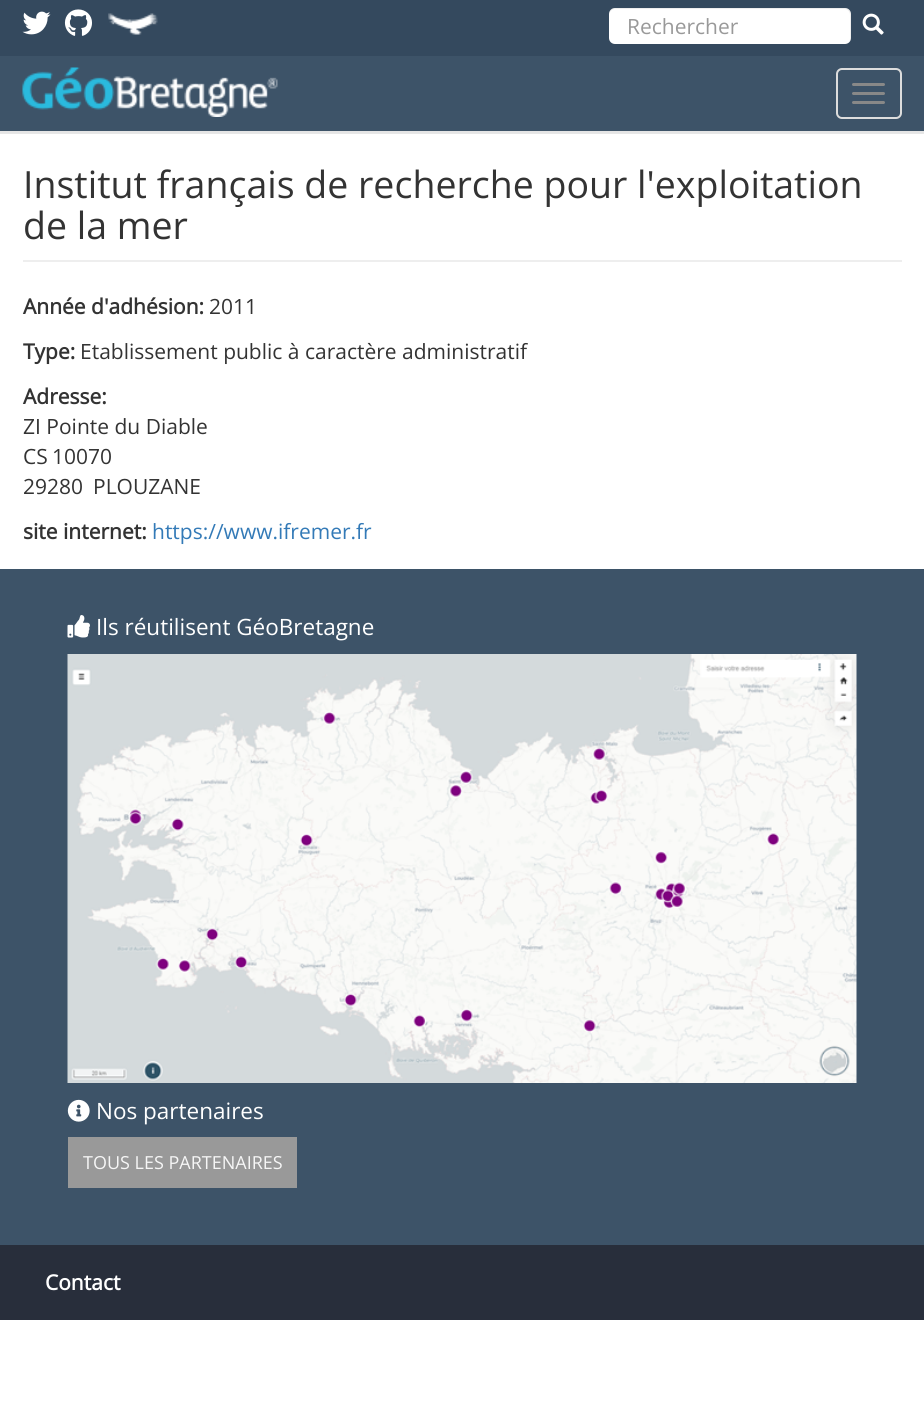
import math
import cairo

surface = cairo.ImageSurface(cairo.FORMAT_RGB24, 924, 1427)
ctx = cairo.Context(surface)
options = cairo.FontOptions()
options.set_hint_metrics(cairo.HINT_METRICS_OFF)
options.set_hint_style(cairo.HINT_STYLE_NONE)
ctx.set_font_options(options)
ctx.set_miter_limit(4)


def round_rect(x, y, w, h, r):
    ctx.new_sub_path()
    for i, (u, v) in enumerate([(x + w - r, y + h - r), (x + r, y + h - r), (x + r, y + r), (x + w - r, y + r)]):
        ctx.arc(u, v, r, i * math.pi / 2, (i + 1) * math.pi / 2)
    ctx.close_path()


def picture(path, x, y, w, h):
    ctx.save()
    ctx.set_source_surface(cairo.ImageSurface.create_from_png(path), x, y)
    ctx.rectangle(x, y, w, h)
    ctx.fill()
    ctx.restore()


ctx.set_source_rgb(1, 1, 1)
ctx.paint()
ctx.set_source_rgb(0.906, 0.906, 0.906)
ctx.rectangle(0, 133, 924, 1)
ctx.fill()
ctx.set_source_rgb(0.204, 0.286, 0.369)
ctx.rectangle(0, 0, 924, 56)
ctx.fill()
picture("img1.png", 22, 11, 29, 24)
picture("img2.png", 64, 9, 28, 27)
picture("img3.png", 108, 13, 50, 22)
ctx.set_source_rgb(1, 1, 1)
round_rect(609, 8, 242, 36, 6)
ctx.fill()
ctx.set_source_rgba(0, 0, 0, 0.07)
ctx.new_path()
ctx.move_to(615, 9)
ctx.line_to(844, 9)
ctx.curve_to(848, 9, 850, 12, 850, 15)
ctx.line_to(850, 39)
ctx.curve_to(850, 40, 850, 41, 849, 42)
ctx.curve_to(850, 41, 851, 40, 851, 38)
ctx.line_to(851, 14)
ctx.curve_to(851, 11, 848, 8, 845, 8)
ctx.line_to(615, 8)
ctx.curve_to(612, 8, 609, 11, 609, 14)
ctx.line_to(609, 15)
ctx.curve_to(609, 12, 612, 9, 615, 9)
ctx.close_path()
ctx.fill()
ctx.select_font_face("Open Sans")
ctx.set_font_size(21)
ctx.set_source_rgb(0.6, 0.6, 0.6)
ctx.move_to(627, 34)
ctx.show_text("Rechercher")
picture("img4.png", 862, 13, 22, 22)
ctx.set_source_rgb(0.239, 0.325, 0.408)
ctx.rectangle(0, 56, 924, 75)
ctx.fill()
ctx.set_source_rgb(0.898, 0.898, 0.898)
ctx.rectangle(0, 131, 924, 2)
ctx.fill()
picture("img5.png", 22, 67, 256, 50)
round_rect(837, 69, 64, 49, 5)
ctx.set_source_rgb(0.867, 0.867, 0.867)
ctx.stroke()
ctx.set_source_rgb(0.533, 0.533, 0.533)
round_rect(852, 83, 33, 3, 1.5)
ctx.fill()
round_rect(852, 92, 33, 3, 1.5)
ctx.fill()
round_rect(852, 101, 33, 3, 1.5)
ctx.fill()
ctx.set_source_rgb(0.933, 0.933, 0.933)
ctx.rectangle(23, 260, 879, 2)
ctx.fill()
ctx.set_font_size(37.5)
ctx.set_source_rgb(0.2, 0.2, 0.2)
ctx.move_to(23, 198)
ctx.show_text("Institut français de recherche pour l'exploitation")
ctx.move_to(23, 239)
ctx.show_text("de la mer")
ctx.select_font_face("Open Sans", cairo.FONT_SLANT_NORMAL, cairo.FONT_WEIGHT_BOLD)
ctx.set_font_size(21)
ctx.move_to(23, 314)
ctx.show_text("Année d'adhésion:")
ctx.select_font_face("Open Sans")
ctx.move_to(209, 314)
ctx.show_text("2011")
ctx.select_font_face("Open Sans", cairo.FONT_SLANT_NORMAL, cairo.FONT_WEIGHT_BOLD)
ctx.move_to(23, 359)
ctx.show_text("Type:")
ctx.select_font_face("Open Sans")
ctx.move_to(80, 359)
ctx.show_text("Etablissement public à caractère administratif")
ctx.select_font_face("Open Sans", cairo.FONT_SLANT_NORMAL, cairo.FONT_WEIGHT_BOLD)
ctx.move_to(23, 404)
ctx.show_text("Adresse:")
ctx.select_font_face("Open Sans")
ctx.move_to(23, 434)
ctx.show_text("ZI Pointe du Diable")
ctx.move_to(23, 464)
ctx.show_text("CS")
ctx.move_to(52, 464)
ctx.show_text("10070")
ctx.move_to(23, 494)
ctx.show_text("29280")
ctx.move_to(93, 494)
ctx.show_text("PLOUZANE")
ctx.select_font_face("Open Sans", cairo.FONT_SLANT_NORMAL, cairo.FONT_WEIGHT_BOLD)
ctx.move_to(23, 539)
ctx.show_text("site internet:")
ctx.select_font_face("Open Sans")
ctx.set_source_rgb(0.2, 0.478, 0.718)
ctx.move_to(152, 539)
ctx.show_text("https://www.ifremer.fr")
ctx.set_source_rgb(0.239, 0.325, 0.408)
ctx.rectangle(0, 569, 924, 676)
ctx.fill()
picture("img6.png", 67, 615, 23, 23)
ctx.set_font_size(22.5)
ctx.set_source_rgb(1, 1, 1)
ctx.move_to(96, 635)
ctx.show_text("Ils réutilisent GéoBretagne")
picture("img7.png", 67, 654, 790, 429)
picture("img8.png", 67, 1099, 23, 23)
ctx.move_to(96, 1119)
ctx.show_text("Nos partenaires")
ctx.set_source_rgb(0.6, 0.6, 0.6)
ctx.rectangle(68, 1137, 229, 51)
ctx.fill()
ctx.set_font_size(18)
ctx.set_source_rgb(0.961, 0.961, 0.961)
ctx.move_to(83, 1169)
ctx.show_text("TOUS LES PARTENAIRES")
ctx.set_source_rgb(0.157, 0.18, 0.231)
ctx.rectangle(0, 1245, 924, 75)
ctx.fill()
ctx.select_font_face("Open Sans", cairo.FONT_SLANT_NORMAL, cairo.FONT_WEIGHT_BOLD)
ctx.set_font_size(21)
ctx.set_source_rgb(1, 1, 1)
ctx.move_to(45, 1290)
ctx.show_text("Contact")
surface.write_to_png("page.png")
